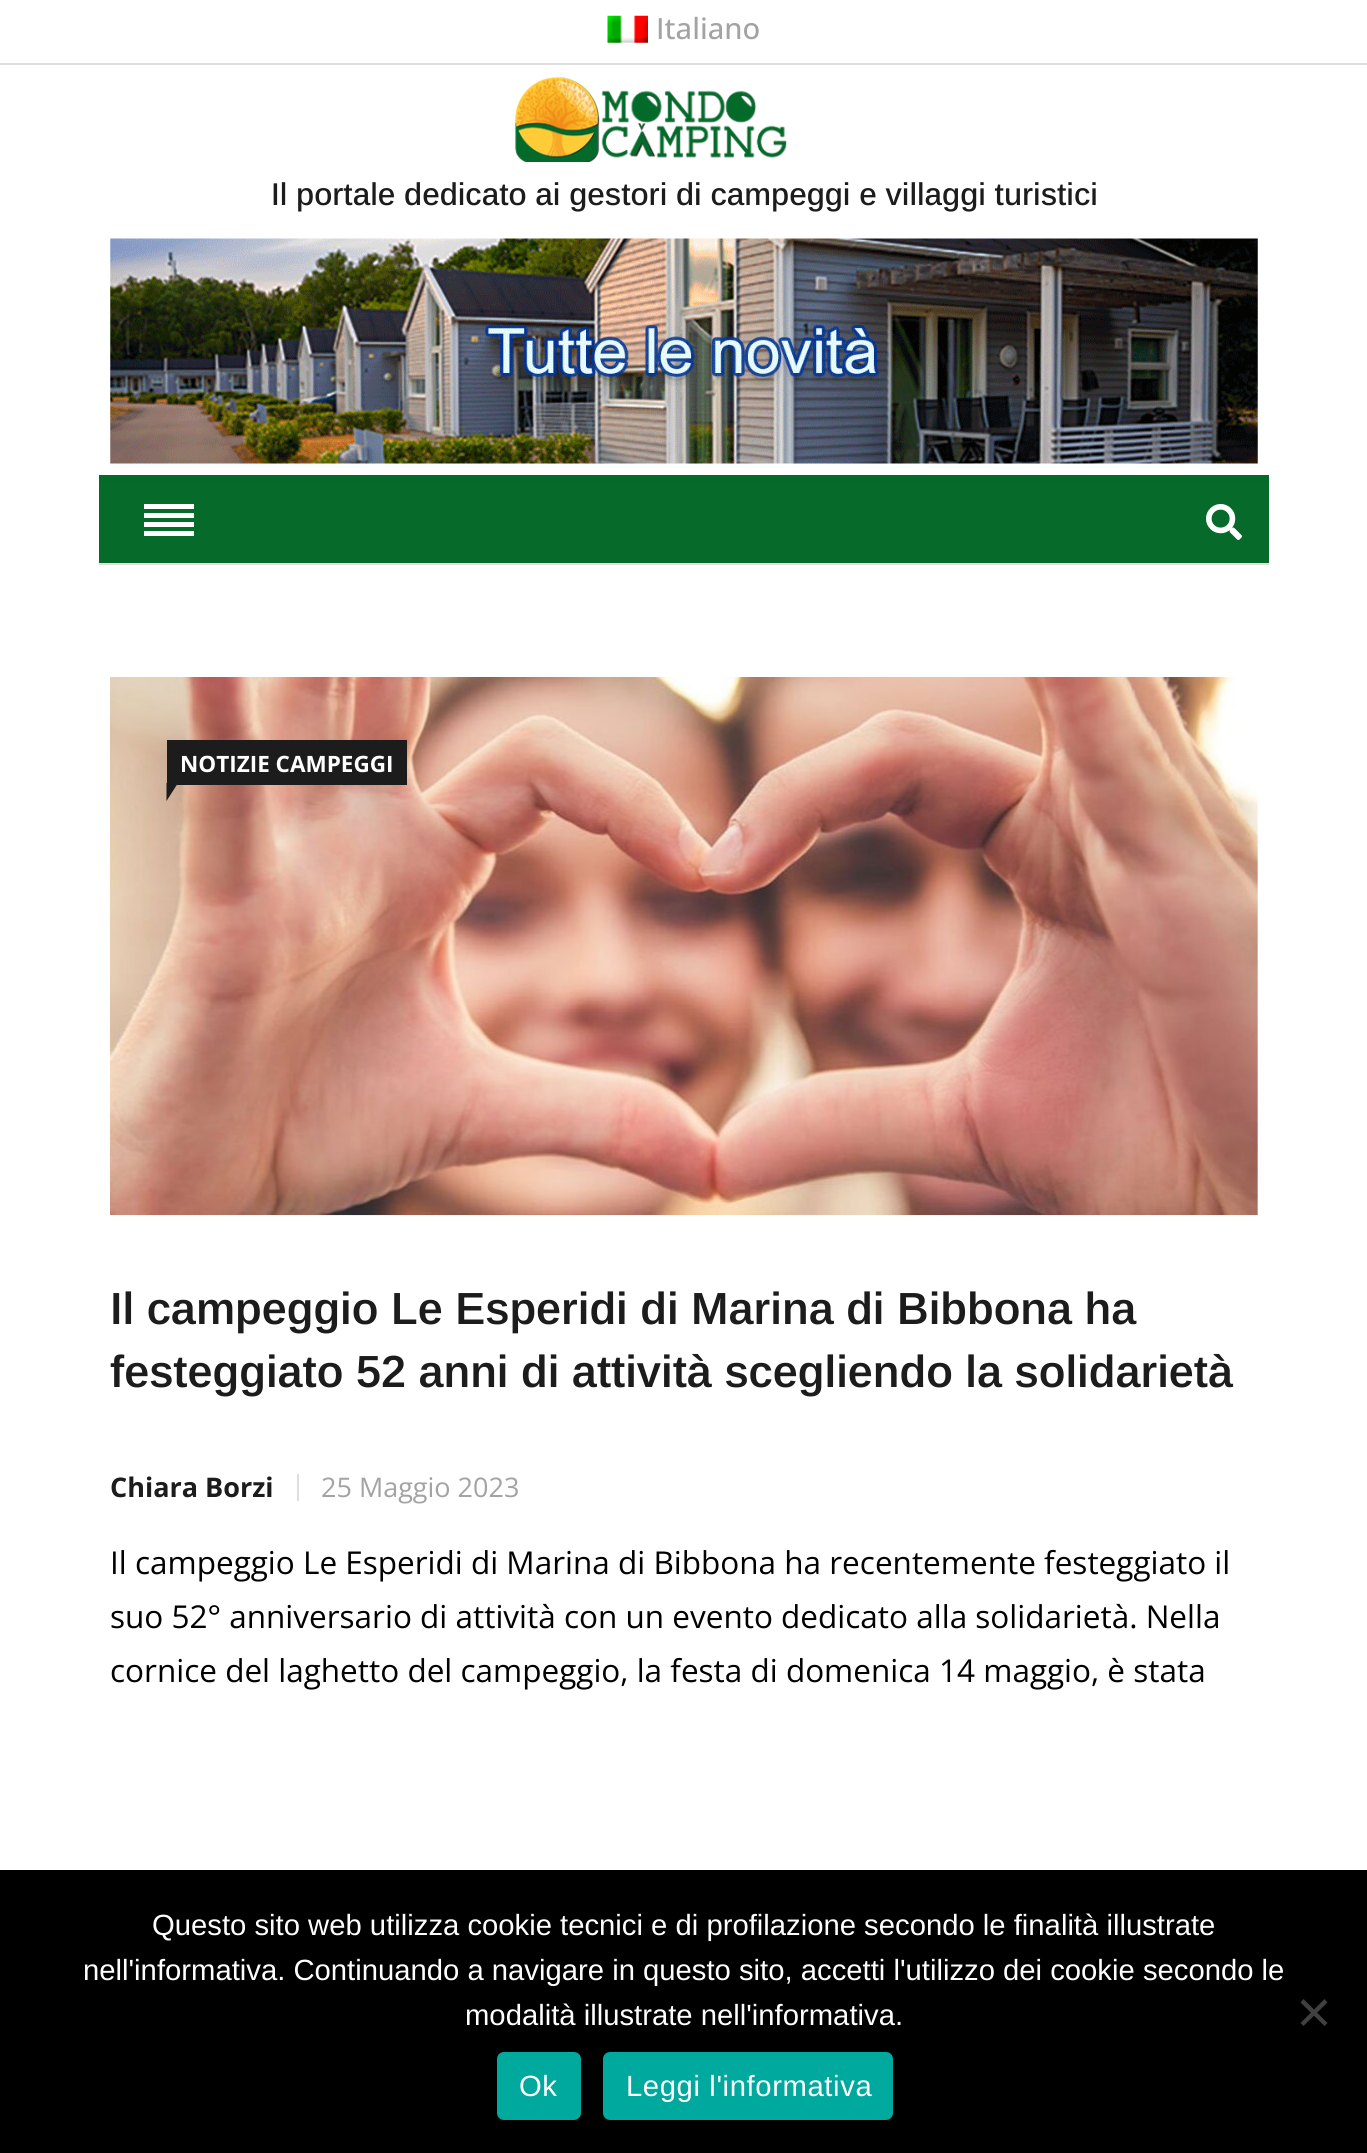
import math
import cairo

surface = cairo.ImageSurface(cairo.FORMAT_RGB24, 1367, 2153)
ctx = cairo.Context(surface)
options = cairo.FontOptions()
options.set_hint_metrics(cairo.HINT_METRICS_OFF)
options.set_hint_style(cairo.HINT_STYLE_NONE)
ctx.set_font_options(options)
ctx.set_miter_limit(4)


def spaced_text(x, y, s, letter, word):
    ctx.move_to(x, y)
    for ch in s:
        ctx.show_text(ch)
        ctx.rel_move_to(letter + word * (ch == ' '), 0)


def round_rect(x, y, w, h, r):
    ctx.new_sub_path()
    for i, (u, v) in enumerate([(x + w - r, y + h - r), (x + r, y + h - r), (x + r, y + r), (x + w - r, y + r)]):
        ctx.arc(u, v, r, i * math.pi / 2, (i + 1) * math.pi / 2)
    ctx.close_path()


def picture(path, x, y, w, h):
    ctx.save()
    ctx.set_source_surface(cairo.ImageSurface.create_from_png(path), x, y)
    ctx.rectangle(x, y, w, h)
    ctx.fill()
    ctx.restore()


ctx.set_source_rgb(1, 1, 1)
ctx.paint()
ctx.set_source_rgb(0.871, 0.871, 0.871)
ctx.rectangle(0, 63, 1367, 2)
ctx.fill()
picture("img1.png", 607, 15, 41, 28)
ctx.select_font_face("Open Sans Medium")
ctx.set_font_size(29.25)
ctx.set_source_rgb(0.639, 0.639, 0.639)
ctx.move_to(656, 39)
ctx.show_text("Italiano")
picture("img2.png", 515, 77, 272, 85)
ctx.select_font_face("Arimo Medium")
ctx.set_font_size(31.5)
ctx.set_source_rgb(0.11, 0.11, 0.11)
ctx.move_to(271, 205)
ctx.show_text("Il portale dedicato ai gestori di campeggi e villaggi turistici")
picture("img3.png", 110, 238, 1148, 226)
ctx.set_source_rgb(0.02, 0.416, 0.165)
ctx.rectangle(99, 482, 1170, 81)
ctx.fill()
ctx.set_source_rgb(0.012, 0.416, 0.165)
ctx.rectangle(99, 475, 1170, 7)
ctx.fill()
ctx.set_source_rgb(0.871, 0.871, 0.871)
ctx.rectangle(99, 563, 1170, 2)
ctx.fill()
ctx.set_source_rgb(1, 1, 1)
ctx.rectangle(144, 504, 50, 5)
ctx.fill()
ctx.rectangle(144, 513, 50, 5)
ctx.fill()
ctx.rectangle(144, 522, 50, 5)
ctx.fill()
ctx.rectangle(144, 531, 50, 5)
ctx.fill()
picture("img4.png", 1206, 504, 36, 36)
picture("img5.png", 110, 677, 1148, 539)
ctx.set_source_rgb(0.11, 0.11, 0.11)
ctx.rectangle(167, 740, 240, 45)
ctx.fill()
ctx.select_font_face("Open Sans", cairo.FONT_SLANT_NORMAL, cairo.FONT_WEIGHT_BOLD)
ctx.set_font_size(22.5)
ctx.set_source_rgb(1, 1, 1)
ctx.move_to(180, 772)
ctx.show_text("NOTIZIE CAMPEGGI")
ctx.set_source_rgb(0.11, 0.11, 0.11)
ctx.new_path()
ctx.move_to(166.5, 783)
ctx.line_to(178, 783)
ctx.line_to(166.5, 801)
ctx.close_path()
ctx.fill()
ctx.select_font_face("Arimo SemiBold")
ctx.set_font_size(45)
ctx.move_to(110, 1324)
ctx.show_text("Il campeggio Le Esperidi di Marina di Bibbona ha")
ctx.move_to(110, 1387)
ctx.show_text("festeggiato 52 anni di attività scegliendo la solidarietà")
ctx.set_source_rgb(0.871, 0.871, 0.871)
ctx.rectangle(297, 1474, 2, 27)
ctx.fill()
ctx.select_font_face("Open Sans", cairo.FONT_SLANT_NORMAL, cairo.FONT_WEIGHT_BOLD)
ctx.set_font_size(27)
ctx.set_source_rgb(0.11, 0.11, 0.11)
ctx.move_to(110, 1497)
ctx.show_text("Chiara Borzi")
ctx.select_font_face("Open Sans")
ctx.set_source_rgb(0.639, 0.639, 0.639)
ctx.move_to(321, 1497)
ctx.show_text("25 Maggio 2023")
ctx.set_font_size(31.5)
ctx.set_source_rgb(0, 0, 0)
ctx.move_to(110, 1574)
ctx.show_text("Il campeggio Le Esperidi di Marina di Bibbona ha recentemente festeggiato il")
ctx.move_to(110, 1628)
ctx.show_text("suo 52° anniversario di attività con un evento dedicato alla solidarietà. Nella")
ctx.move_to(110, 1682)
ctx.show_text("cornice del laghetto del campeggio, la festa di domenica 14 maggio, è stata")
ctx.rectangle(0, 1870, 1367, 283)
ctx.fill()
ctx.select_font_face("Liberation Sans")
ctx.set_font_size(29.25)
ctx.set_source_rgb(1, 1, 1)
ctx.move_to(152, 1935)
ctx.show_text("Questo sito web utilizza cookie tecnici e di profilazione secondo le finalità illustrate")
ctx.move_to(83, 1980)
ctx.show_text("nell'informativa. Continuando a navigare in questo sito, accetti l'utilizzo dei cookie secondo le")
ctx.move_to(465, 2025)
ctx.show_text("modalità illustrate nell'informativa.")
ctx.set_source_rgb(0.251, 0.251, 0.251)
ctx.new_path()
ctx.move_to(1324.5, 1999)
ctx.line_to(1327.5, 2002.5)
ctx.line_to(1303.5, 2026)
ctx.line_to(1300.5, 2023)
ctx.close_path()
ctx.fill()
ctx.new_path()
ctx.move_to(1300.5, 2002.5)
ctx.line_to(1303.5, 1999)
ctx.line_to(1327.5, 2023)
ctx.line_to(1324.5, 2026)
ctx.close_path()
ctx.fill()
ctx.set_source_rgb(0, 0.663, 0.616)
round_rect(497, 2052, 84, 68, 7)
ctx.fill()
ctx.set_source_rgb(1, 1, 1)
spaced_text(519, 2096, "Ok", 0.6, 0)
ctx.set_source_rgb(0, 0.663, 0.616)
round_rect(603, 2052, 290, 68, 7)
ctx.fill()
ctx.set_source_rgb(1, 1, 1)
spaced_text(626, 2096, "Leggi l'informativa", 0.6, 0)
surface.write_to_png("page.png")
